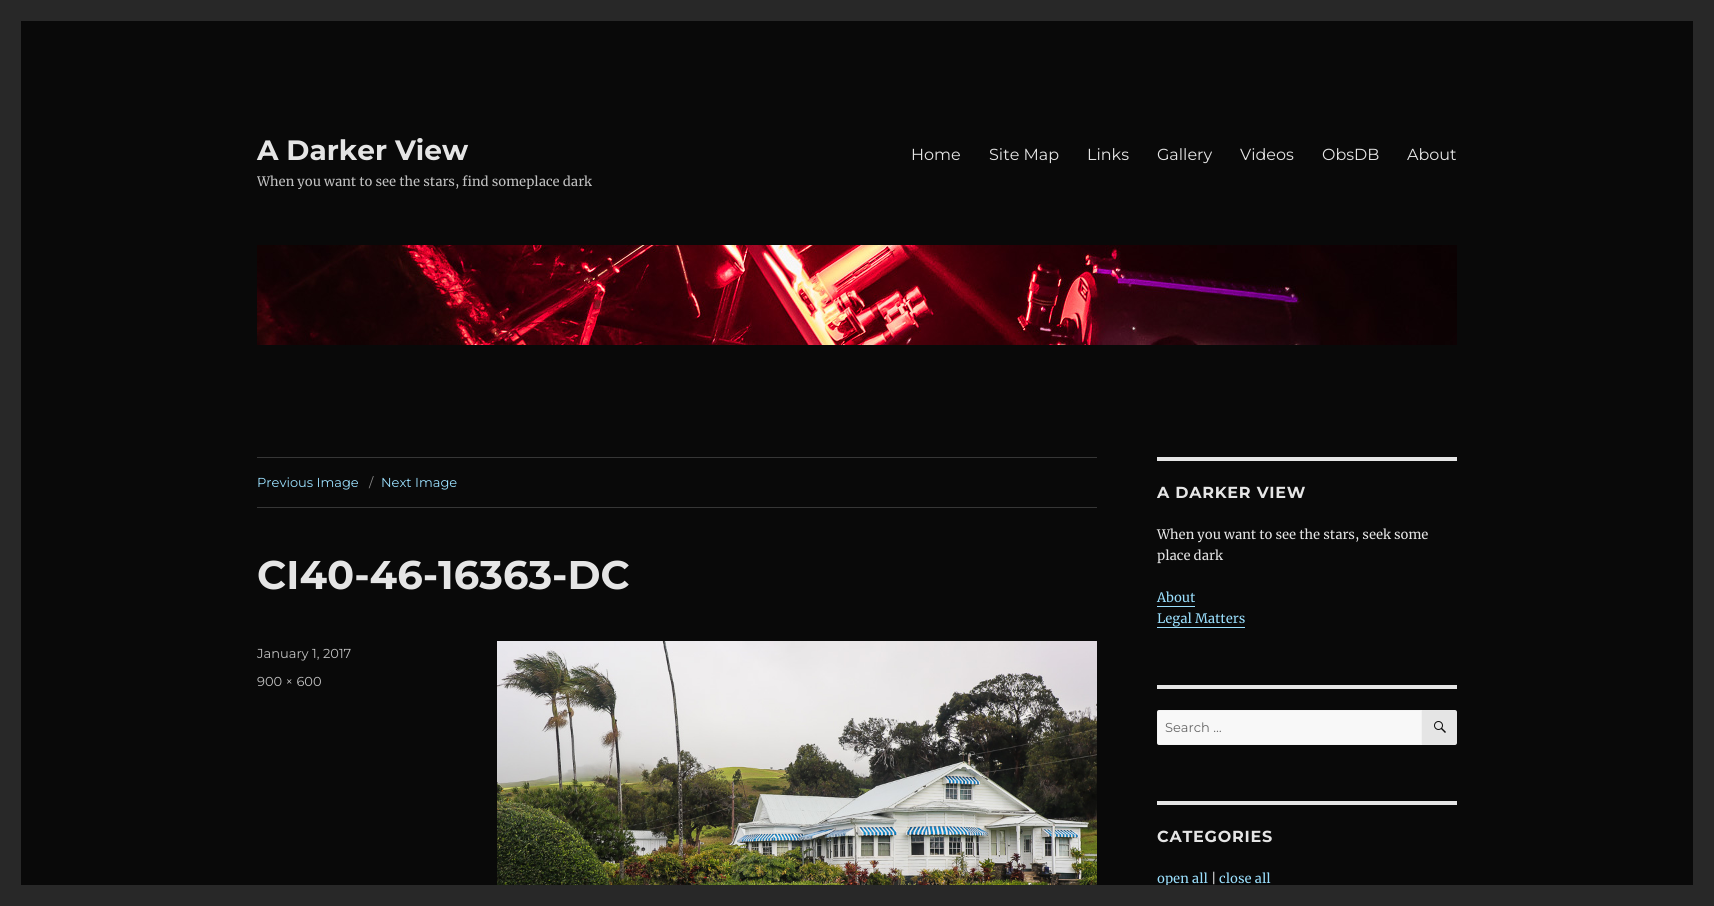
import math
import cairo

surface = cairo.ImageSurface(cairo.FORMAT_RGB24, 1714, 906)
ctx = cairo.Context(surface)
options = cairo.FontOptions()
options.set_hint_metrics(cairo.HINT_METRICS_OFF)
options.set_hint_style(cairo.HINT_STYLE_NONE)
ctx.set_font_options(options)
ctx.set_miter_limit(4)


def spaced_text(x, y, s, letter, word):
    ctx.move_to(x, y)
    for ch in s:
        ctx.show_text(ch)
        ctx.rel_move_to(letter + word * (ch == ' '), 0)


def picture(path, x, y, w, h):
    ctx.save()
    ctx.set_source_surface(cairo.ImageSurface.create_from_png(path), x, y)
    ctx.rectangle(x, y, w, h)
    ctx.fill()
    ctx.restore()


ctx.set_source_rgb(0.157, 0.157, 0.157)
ctx.paint()
ctx.set_source_rgb(0.039, 0.039, 0.039)
ctx.rectangle(21, 21, 1672, 864)
ctx.fill()
ctx.select_font_face("Montserrat Thin")
ctx.set_font_size(28)
ctx.set_source_rgb(0.898, 0.898, 0.898)
ctx.move_to(257, 160)
ctx.show_text("A Darker View")
ctx.save()
ctx.rectangle(257, 133, 335, 56)
ctx.clip()
ctx.select_font_face("Merriweather")
ctx.set_font_size(13)
ctx.set_source_rgb(0.757, 0.757, 0.757)
ctx.move_to(257, 186)
ctx.show_text("When you want to see the stars, find someplace dark")
ctx.restore()
ctx.select_font_face("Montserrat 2 Thin")
ctx.set_font_size(16)
ctx.move_to(911, 160)
ctx.show_text("Home")
ctx.move_to(989, 160)
ctx.show_text("Site Map")
ctx.move_to(1087, 160)
ctx.show_text("Links")
ctx.move_to(1157, 160)
ctx.show_text("Gallery")
ctx.move_to(1240, 160)
ctx.show_text("Videos")
ctx.move_to(1322, 160)
ctx.show_text("ObsDB")
ctx.move_to(1407, 160)
ctx.show_text("About")
picture("img1.png", 257, 245, 1200, 100)
ctx.set_source_rgb(0.212, 0.212, 0.212)
ctx.rectangle(257, 457, 840, 1)
ctx.fill()
ctx.rectangle(257, 507, 840, 1)
ctx.fill()
ctx.set_font_size(13)
ctx.set_source_rgb(0.604, 0.875, 0.992)
ctx.move_to(257, 487)
ctx.show_text("Previous Image")
ctx.set_source_rgb(0.541, 0.541, 0.541)
ctx.move_to(369, 487)
ctx.show_text("/")
ctx.set_source_rgb(0.604, 0.875, 0.992)
ctx.move_to(381, 487)
ctx.show_text("Next Image")
ctx.select_font_face("Montserrat Thin")
ctx.set_font_size(40)
ctx.set_source_rgb(0.898, 0.898, 0.898)
ctx.move_to(257, 589)
ctx.show_text("CI40-46-16363-DC")
ctx.select_font_face("Montserrat 2 Thin")
ctx.set_font_size(13)
ctx.set_source_rgb(0.757, 0.757, 0.757)
ctx.move_to(257, 658)
ctx.show_text("January 1, 2017")
ctx.move_to(257, 686)
ctx.show_text("900 × 600")
picture("img2.png", 497, 641, 600, 244)
ctx.set_source_rgb(0.898, 0.898, 0.898)
ctx.rectangle(1157, 457, 300, 4)
ctx.fill()
ctx.select_font_face("Montserrat Thin")
ctx.set_font_size(16)
spaced_text(1157, 498, "A DARKER VIEW", 0.75, 0)
ctx.select_font_face("Merriweather")
ctx.set_font_size(13)
ctx.move_to(1157, 539)
ctx.show_text("When you want to see the stars, seek some")
ctx.move_to(1157, 560)
ctx.show_text("place dark")
ctx.set_source_rgb(0.604, 0.875, 0.992)
ctx.move_to(1157, 602)
ctx.show_text("About")
ctx.rectangle(1157, 606, 38, 1)
ctx.fill()
ctx.move_to(1157, 623)
ctx.show_text("Legal Matters")
ctx.rectangle(1157, 627, 88, 1)
ctx.fill()
ctx.set_source_rgb(0.898, 0.898, 0.898)
ctx.rectangle(1157, 685, 300, 4)
ctx.fill()
ctx.set_source_rgb(0.969, 0.969, 0.969)
ctx.new_path()
ctx.move_to(1159, 710)
ctx.line_to(1422, 710)
ctx.line_to(1422, 745)
ctx.line_to(1159, 745)
ctx.curve_to(1158, 745, 1157, 744, 1157, 743)
ctx.line_to(1157, 712)
ctx.curve_to(1157, 711, 1158, 710, 1159, 710)
ctx.close_path()
ctx.fill()
ctx.new_path()
ctx.move_to(1159, 710.5)
ctx.line_to(1421.5, 710.5)
ctx.line_to(1421.5, 744.5)
ctx.line_to(1159, 744.5)
ctx.curve_to(1158, 744.5, 1157.5, 744, 1157.5, 743)
ctx.line_to(1157.5, 712)
ctx.curve_to(1157.5, 711, 1158, 710.5, 1159, 710.5)
ctx.close_path()
ctx.set_source_rgba(0.898, 0.898, 0.898, 0.2)
ctx.set_line_width(1)
ctx.stroke()
ctx.select_font_face("Montserrat 2 Thin")
ctx.set_source_rgb(0.408, 0.408, 0.408)
ctx.move_to(1165, 732)
ctx.show_text("Search …")
ctx.set_source_rgb(0.898, 0.898, 0.898)
ctx.new_path()
ctx.move_to(1422, 710)
ctx.line_to(1455, 710)
ctx.curve_to(1456, 710, 1457, 711, 1457, 712)
ctx.line_to(1457, 743)
ctx.curve_to(1457, 744, 1456, 745, 1455, 745)
ctx.line_to(1422, 745)
ctx.close_path()
ctx.fill()
picture("img3.png", 1434, 721, 12, 12)
ctx.rectangle(1157, 801, 300, 4)
ctx.fill()
ctx.select_font_face("Montserrat Thin")
ctx.set_font_size(16)
spaced_text(1157, 842, "CATEGORIES", 0.75, 0)
ctx.select_font_face("Merriweather")
ctx.set_font_size(13)
ctx.set_source_rgb(0.604, 0.875, 0.992)
ctx.move_to(1157, 883)
ctx.show_text("open all")
ctx.set_source_rgb(0.898, 0.898, 0.898)
ctx.move_to(1211, 883)
ctx.show_text("|")
ctx.set_source_rgb(0.604, 0.875, 0.992)
ctx.move_to(1219, 883)
ctx.show_text("close all")
ctx.set_source_rgb(0.157, 0.157, 0.157)
ctx.rectangle(1165, 885, 4, 2)
ctx.fill()
surface.write_to_png("page.png")
